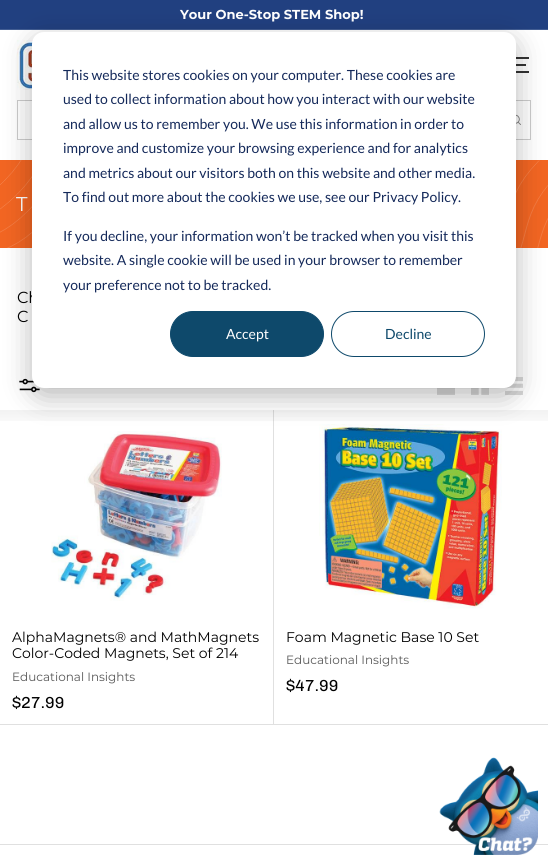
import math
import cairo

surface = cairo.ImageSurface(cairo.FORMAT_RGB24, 548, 865)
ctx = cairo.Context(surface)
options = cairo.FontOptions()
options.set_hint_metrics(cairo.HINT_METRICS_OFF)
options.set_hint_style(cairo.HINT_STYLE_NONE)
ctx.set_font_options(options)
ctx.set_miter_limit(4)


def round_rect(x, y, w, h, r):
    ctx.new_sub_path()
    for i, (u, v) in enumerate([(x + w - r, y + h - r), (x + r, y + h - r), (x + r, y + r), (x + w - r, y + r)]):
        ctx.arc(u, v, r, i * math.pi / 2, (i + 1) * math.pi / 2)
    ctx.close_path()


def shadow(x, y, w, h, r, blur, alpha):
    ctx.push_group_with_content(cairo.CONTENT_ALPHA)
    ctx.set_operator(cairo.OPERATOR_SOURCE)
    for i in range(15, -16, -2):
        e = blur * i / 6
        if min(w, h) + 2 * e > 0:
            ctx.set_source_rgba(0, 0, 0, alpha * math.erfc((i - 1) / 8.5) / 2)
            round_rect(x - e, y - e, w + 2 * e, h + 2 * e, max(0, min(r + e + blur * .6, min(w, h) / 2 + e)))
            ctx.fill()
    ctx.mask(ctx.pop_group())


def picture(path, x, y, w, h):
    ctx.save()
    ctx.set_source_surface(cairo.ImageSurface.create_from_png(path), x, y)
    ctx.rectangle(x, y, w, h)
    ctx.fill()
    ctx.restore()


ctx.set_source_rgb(1, 1, 1)
ctx.paint()
ctx.set_source_rgb(0.129, 0.251, 0.502)
ctx.rectangle(0, 0, 548, 29)
ctx.fill()
ctx.select_font_face("Montserrat", cairo.FONT_SLANT_NORMAL, cairo.FONT_WEIGHT_BOLD)
ctx.set_font_size(13)
ctx.set_source_rgb(1, 1, 1)
ctx.move_to(180, 19)
ctx.show_text("Your One-Stop STEM Shop!")
ctx.set_source_rgb(0.259, 0.365, 0.576)
ctx.rectangle(0, 29, 548, 1)
ctx.fill()
picture("img1.png", 17, 40, 16, 50)
ctx.set_source_rgb(0.2, 0.2, 0.2)
ctx.rectangle(508, 57, 21, 2)
ctx.fill()
ctx.rectangle(508, 64, 18, 2)
ctx.fill()
ctx.rectangle(508, 71, 21, 2)
ctx.fill()
ctx.rectangle(17.5, 100.5, 513, 39)
ctx.set_source_rgb(0.8, 0.8, 0.8)
ctx.set_line_width(1)
ctx.stroke()
picture("img2.png", 516, 114, 5, 11)
ctx.set_source_rgb(0.949, 0.396, 0.133)
ctx.rectangle(0, 160, 548, 88)
ctx.fill()
picture("img3.png", 0, 160, 548, 88)
ctx.select_font_face("Montserrat")
ctx.set_font_size(20)
ctx.set_source_rgb(1, 1, 1)
ctx.move_to(16, 211)
ctx.show_text("T")
ctx.set_font_size(16)
ctx.set_source_rgb(0, 0, 0)
ctx.move_to(17, 303)
ctx.show_text("Ch")
ctx.move_to(17, 322)
ctx.show_text("C")
picture("img7.png", 51, 431, 171, 170)
ctx.rectangle(-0.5, 409.5, 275, 315)
ctx.set_source_rgb(0.878, 0.878, 0.878)
ctx.stroke()
ctx.set_source_rgb(1, 1, 1)
ctx.rectangle(274, 410, 1, 314)
ctx.fill()
picture("img8.png", 319, 424, 183, 185)
ctx.rectangle(273.5, 409.5, 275, 315)
ctx.set_source_rgb(0.878, 0.878, 0.878)
ctx.stroke()
ctx.set_source_rgb(1, 1, 1)
ctx.rectangle(0, 409, 548, 1)
ctx.fill()
picture("img4.png", 19, 378, 21, 15)
ctx.set_source_rgb(0.851, 0.851, 0.851)
ctx.rectangle(437, 388, 18, 7)
ctx.fill()
picture("img5.png", 471, 388, 18, 7)
picture("img6.png", 505, 377, 18, 18)
gradient = cairo.LinearGradient(274, 410, 274, 430)
gradient.add_color_stop_rgba(0, 0, 0, 0, 0.05)
gradient.add_color_stop_rgba(1, 0, 0, 0, 0)
ctx.set_source(gradient)
ctx.rectangle(0, 410, 548, 11)
ctx.fill()
ctx.set_font_size(14)
ctx.set_source_rgb(0, 0, 0)
ctx.move_to(12, 642)
ctx.show_text("AlphaMagnets® and MathMagnets")
ctx.move_to(12, 658)
ctx.show_text("Color-Coded Magnets, Set of 214")
ctx.set_font_size(12)
ctx.set_source_rgb(0.349, 0.349, 0.349)
ctx.move_to(12, 681)
ctx.show_text("Educational Insights")
ctx.select_font_face("Chivo")
ctx.set_font_size(16)
ctx.set_source_rgb(0, 0, 0)
ctx.move_to(12, 708)
ctx.show_text("$27.99")
ctx.select_font_face("Montserrat")
ctx.set_font_size(14)
ctx.move_to(286, 642)
ctx.show_text("Foam Magnetic Base 10 Set")
ctx.set_font_size(12)
ctx.set_source_rgb(0.349, 0.349, 0.349)
ctx.move_to(286, 664)
ctx.show_text("Educational Insights")
ctx.select_font_face("Chivo")
ctx.set_font_size(16)
ctx.set_source_rgb(0, 0, 0)
ctx.move_to(286, 691)
ctx.show_text("$47.99")
ctx.set_source_rgb(0.878, 0.878, 0.878)
ctx.rectangle(0, 844, 548, 1)
ctx.fill()
ctx.set_source_rgb(0, 0, 0)
shadow(32, 40, 484, 356, 12, 14, 0.28)
ctx.set_source_rgb(1, 1, 1)
round_rect(32, 32, 484, 356, 12)
ctx.fill()
ctx.select_font_face("Lato")
ctx.set_font_size(14)
ctx.set_source_rgb(0.082, 0.161, 0.353)
ctx.move_to(63, 80)
ctx.show_text("This website stores cookies on your computer. These cookies are")
ctx.move_to(63, 104)
ctx.show_text("used to collect information about how you interact with our website")
ctx.move_to(63, 129)
ctx.show_text("and allow us to remember you. We use this information in order to")
ctx.move_to(63, 153)
ctx.show_text("improve and customize your browsing experience and for analytics")
ctx.move_to(63, 178)
ctx.show_text("and metrics about our visitors both on this website and other media.")
ctx.move_to(63, 202)
ctx.show_text("To find out more about the cookies we use, see our Privacy Policy.")
ctx.move_to(63, 241)
ctx.show_text("If you decline, your information won’t be tracked when you visit this")
ctx.move_to(63, 265)
ctx.show_text("website. A single cookie will be used in your browser to remember")
ctx.move_to(63, 290)
ctx.show_text("your preference not to be tracked.")
ctx.set_source_rgb(0.055, 0.286, 0.42)
round_rect(170.5, 311.5, 153, 45, 22.5)
ctx.fill_preserve()
ctx.stroke()
ctx.set_source_rgb(1, 1, 1)
ctx.move_to(226, 339)
ctx.show_text("Accept")
round_rect(331.5, 311.5, 153, 45, 22.5)
ctx.set_source_rgb(0.055, 0.286, 0.42)
ctx.stroke()
ctx.move_to(385, 339)
ctx.show_text("Decline")
picture("img9.png", 439, 757, 99, 98)
surface.write_to_png("page.png")
